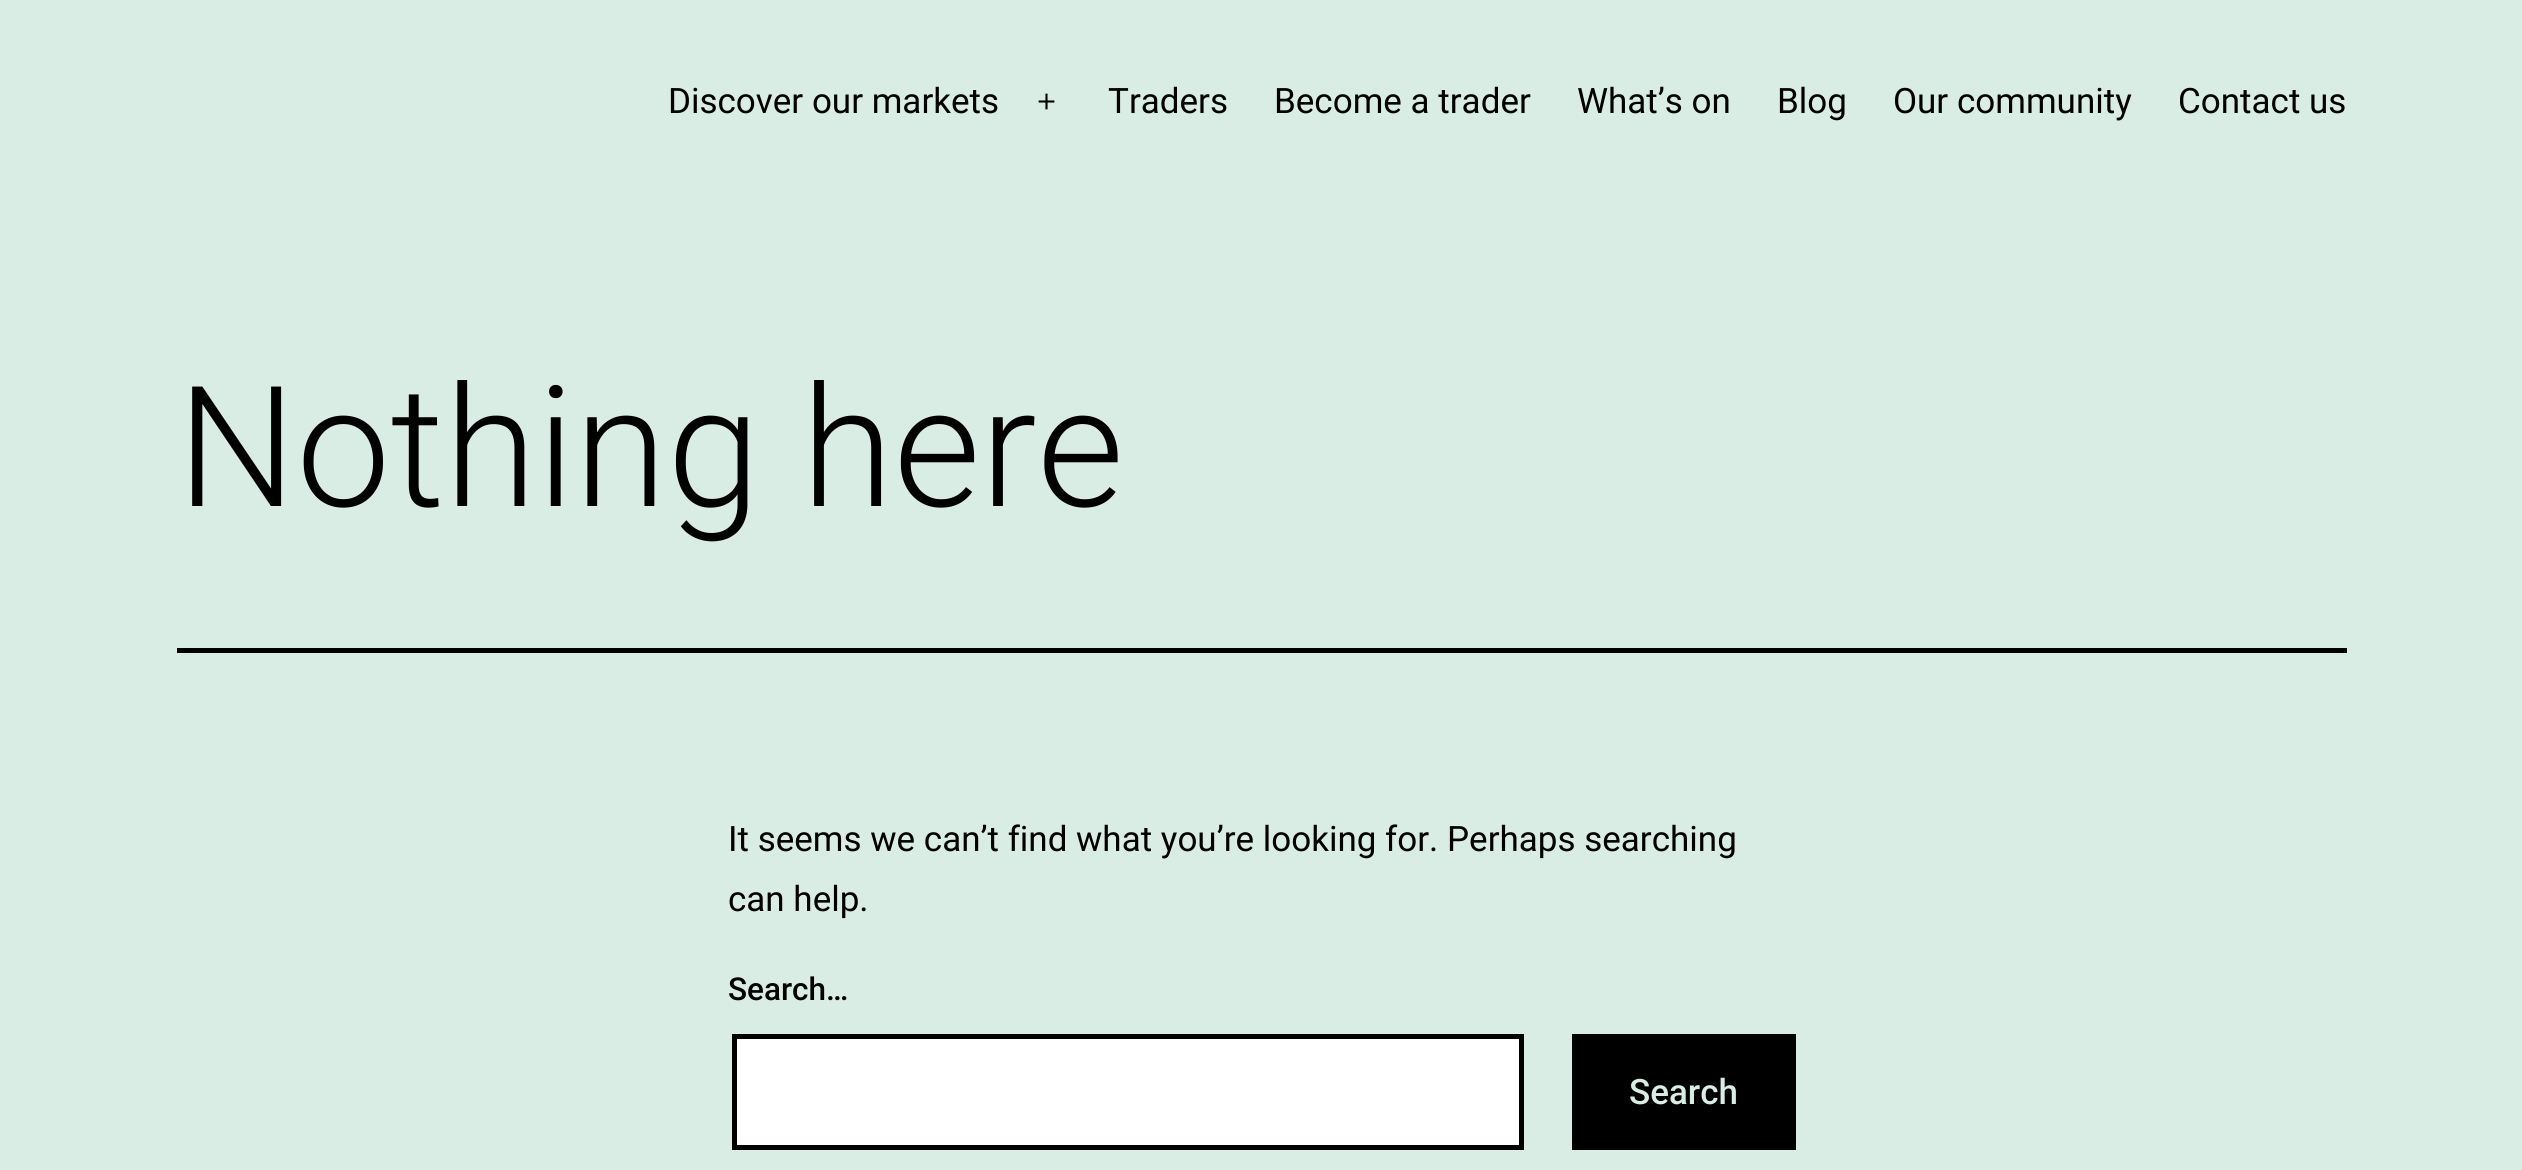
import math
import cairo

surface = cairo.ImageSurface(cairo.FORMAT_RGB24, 2522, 1170)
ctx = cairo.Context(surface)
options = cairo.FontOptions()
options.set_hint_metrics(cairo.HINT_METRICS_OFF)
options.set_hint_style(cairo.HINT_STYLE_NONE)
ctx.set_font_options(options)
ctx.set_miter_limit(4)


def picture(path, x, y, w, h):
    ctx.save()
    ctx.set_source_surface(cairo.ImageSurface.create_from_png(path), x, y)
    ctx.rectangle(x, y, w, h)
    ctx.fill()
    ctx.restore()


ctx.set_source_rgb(0.855, 0.929, 0.898)
ctx.paint()
ctx.select_font_face("Roboto")
ctx.set_font_size(35)
ctx.set_source_rgb(0, 0, 0)
ctx.move_to(668, 113)
ctx.show_text("Discover our markets")
picture("img1.png", 1038, 93, 17, 17)
ctx.move_to(1108, 113)
ctx.show_text("Traders")
ctx.move_to(1274, 113)
ctx.show_text("Become a trader")
ctx.move_to(1577, 113)
ctx.show_text("What’s on")
ctx.move_to(1777, 113)
ctx.show_text("Blog")
ctx.move_to(1893, 113)
ctx.show_text("Our community")
ctx.move_to(2178, 113)
ctx.show_text("Contact us")
ctx.rectangle(177, 648, 2170, 5)
ctx.fill()
ctx.select_font_face("Roboto Light")
ctx.set_font_size(168)
ctx.move_to(177, 506)
ctx.show_text("Nothing here")
ctx.select_font_face("Roboto")
ctx.set_font_size(35)
ctx.move_to(728, 851)
ctx.show_text("It seems we can’t find what you’re looking for. Perhaps searching")
ctx.move_to(728, 911)
ctx.show_text("can help.")
ctx.select_font_face("Roboto Medium")
ctx.set_font_size(31.5)
ctx.move_to(728, 1000)
ctx.show_text("Search…")
ctx.set_source_rgb(1, 1, 1)
ctx.rectangle(734.5, 1036.5, 787, 111)
ctx.fill_preserve()
ctx.set_source_rgb(0, 0, 0)
ctx.set_line_width(5)
ctx.stroke()
ctx.rectangle(1572, 1034, 224, 116)
ctx.fill()
ctx.set_font_size(35)
ctx.set_source_rgb(0.855, 0.929, 0.898)
ctx.move_to(1629, 1104)
ctx.show_text("Search")
surface.write_to_png("page.png")
